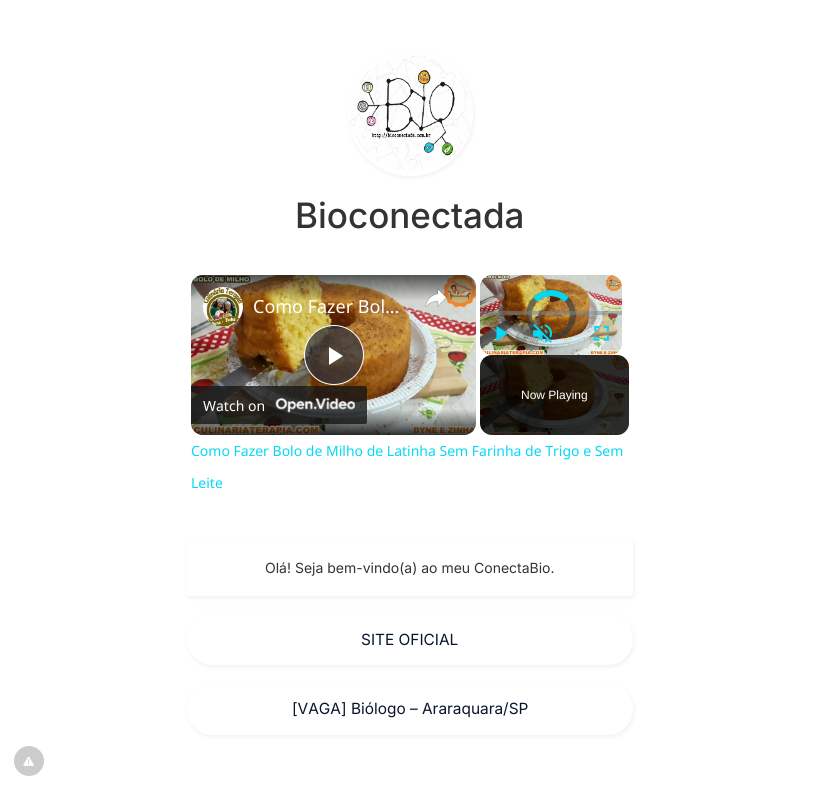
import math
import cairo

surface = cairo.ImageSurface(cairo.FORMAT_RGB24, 820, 790)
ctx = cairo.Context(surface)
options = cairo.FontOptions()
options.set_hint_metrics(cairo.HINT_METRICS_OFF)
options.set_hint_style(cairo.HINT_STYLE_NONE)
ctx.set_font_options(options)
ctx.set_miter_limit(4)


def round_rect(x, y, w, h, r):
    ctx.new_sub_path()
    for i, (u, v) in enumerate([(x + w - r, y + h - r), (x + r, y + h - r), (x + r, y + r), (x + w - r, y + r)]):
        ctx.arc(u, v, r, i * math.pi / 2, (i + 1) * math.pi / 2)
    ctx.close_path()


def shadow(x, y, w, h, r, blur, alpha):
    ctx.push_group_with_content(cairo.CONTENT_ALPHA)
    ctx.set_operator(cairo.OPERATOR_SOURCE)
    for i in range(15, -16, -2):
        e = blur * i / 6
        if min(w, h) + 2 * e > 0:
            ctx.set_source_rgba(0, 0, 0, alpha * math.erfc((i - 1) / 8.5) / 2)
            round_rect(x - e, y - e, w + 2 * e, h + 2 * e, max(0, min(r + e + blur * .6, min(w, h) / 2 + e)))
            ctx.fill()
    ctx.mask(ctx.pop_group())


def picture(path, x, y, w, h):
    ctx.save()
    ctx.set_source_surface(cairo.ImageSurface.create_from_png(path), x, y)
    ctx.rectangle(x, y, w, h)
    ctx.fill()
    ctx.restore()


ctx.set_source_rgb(1, 1, 1)
ctx.paint()
ctx.save()
ctx.set_fill_rule(cairo.FILL_RULE_EVEN_ODD)
ctx.new_path()
ctx.move_to(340, 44)
ctx.line_to(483, 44)
ctx.line_to(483, 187)
ctx.line_to(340, 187)
ctx.close_path()
ctx.move_to(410.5, 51)
ctx.curve_to(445, 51, 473, 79, 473, 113.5)
ctx.curve_to(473, 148, 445, 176, 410.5, 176)
ctx.curve_to(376, 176, 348, 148, 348, 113.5)
ctx.curve_to(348, 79, 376, 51, 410.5, 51)
ctx.close_path()
ctx.clip()
ctx.set_source_rgb(0, 0, 0)
shadow(349, 53, 125, 125, 62.5, 2.5, 0.06)
ctx.restore()
picture("img1.png", 350, 56, 121, 116)
ctx.select_font_face("Inter Medium")
ctx.set_font_size(35)
ctx.set_source_rgb(0.2, 0.2, 0.2)
ctx.move_to(295, 228)
ctx.show_text("Bioconectada")
picture("img2.png", 191, 275, 285, 160)
picture("img3.png", 191, 275, 285, 160)
ctx.set_source_rgba(0.169, 0.2, 0.247, 0.7)
ctx.arc(334, 355, 29.5, 0, 2 * math.pi)
ctx.fill_preserve()
ctx.set_source_rgb(1, 1, 1)
ctx.set_line_width(1)
ctx.stroke()
ctx.new_path()
ctx.move_to(329, 347)
ctx.line_to(329, 365)
ctx.line_to(343, 356)
ctx.close_path()
ctx.fill()
gradient = cairo.LinearGradient(334, 275, 334, 435)
gradient.add_color_stop_rgba(0, 0, 0, 0, 0.6)
gradient.add_color_stop_rgba(0.16, 0, 0, 0, 0)
gradient.add_color_stop_rgba(0.84, 0, 0, 0, 0)
gradient.add_color_stop_rgba(1, 0, 0, 0, 0.8)
ctx.set_source(gradient)
round_rect(191, 275, 285, 160, 12)
ctx.fill()
picture("img4.png", 203, 287, 40, 40)
ctx.select_font_face("Noto Sans")
ctx.set_font_size(18)
ctx.set_source_rgb(1, 1, 1)
ctx.move_to(253, 313)
ctx.show_text("Como Fazer Bol…")
picture("img5.png", 425, 287, 23, 21)
ctx.set_source_rgba(0.09, 0.09, 0.09, 0.8)
ctx.new_path()
ctx.move_to(191, 386)
ctx.line_to(365, 386)
ctx.curve_to(366, 386, 367, 387, 367, 388)
ctx.line_to(367, 422)
ctx.curve_to(367, 423, 366, 424, 365, 424)
ctx.line_to(191, 424)
ctx.close_path()
ctx.fill()
ctx.set_font_size(14)
ctx.set_source_rgb(1, 1, 1)
ctx.move_to(203, 411)
ctx.show_text("Watch on")
picture("img6.png", 275, 398, 80, 15)
picture("img7.png", 480, 275, 142, 80)
ctx.arc(551, 315, 22, 0, 2 * math.pi)
ctx.set_source_rgba(0.169, 0.2, 0.247, 0.59)
ctx.set_line_width(6)
ctx.stroke()
ctx.new_path()
ctx.move_to(535.5, 299.5)
ctx.curve_to(544, 291, 558, 291, 566.5, 299.5)
ctx.set_source_rgba(0.02, 0.847, 0.953, 0.85)
ctx.stroke()
ctx.new_path()
ctx.move_to(535.5, 299.5)
ctx.curve_to(544, 291, 558, 291, 566.5, 299.5)
ctx.stroke()
ctx.set_source_rgba(0.451, 0.522, 0.624, 0.5)
ctx.rectangle(480, 311, 142, 4)
ctx.fill()
ctx.set_source_rgb(0.02, 0.847, 0.953)
ctx.new_path()
ctx.move_to(496.5, 326)
ctx.line_to(496.5, 341)
ctx.line_to(508, 333.5)
ctx.close_path()
ctx.fill()
picture("img8.png", 533, 324, 20, 19)
picture("img9.png", 594, 326, 15, 15)
ctx.set_source_rgb(0, 0, 0)
round_rect(480, 355, 149, 80, 12)
ctx.fill()
picture("img10.png", 480, 355, 149, 80)
ctx.select_font_face("Liberation Sans")
ctx.set_font_size(12)
ctx.set_source_rgb(1, 1, 1)
ctx.move_to(521, 399)
ctx.show_text("Now Playing")
ctx.select_font_face("Noto Sans")
ctx.set_font_size(14)
ctx.set_source_rgb(0.02, 0.847, 0.953)
ctx.move_to(191, 456)
ctx.show_text("Como Fazer Bolo de Milho de Latinha Sem Farinha de Trigo e Sem")
ctx.move_to(191, 488)
ctx.show_text("Leite")
ctx.save()
ctx.set_fill_rule(cairo.FILL_RULE_EVEN_ODD)
ctx.new_path()
ctx.move_to(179, 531)
ctx.line_to(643, 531)
ctx.line_to(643, 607)
ctx.line_to(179, 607)
ctx.close_path()
ctx.move_to(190, 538)
ctx.line_to(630, 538)
ctx.curve_to(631.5, 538, 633, 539.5, 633, 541)
ctx.line_to(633, 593)
ctx.curve_to(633, 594.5, 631.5, 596, 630, 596)
ctx.line_to(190, 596)
ctx.curve_to(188.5, 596, 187, 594.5, 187, 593)
ctx.line_to(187, 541)
ctx.curve_to(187, 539.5, 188.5, 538, 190, 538)
ctx.close_path()
ctx.clip()
ctx.set_source_rgb(0, 0, 0)
shadow(188, 540, 446, 58, 3, 2.5, 0.06)
ctx.restore()
ctx.select_font_face("Inter")
ctx.set_source_rgb(0.2, 0.2, 0.2)
ctx.move_to(265, 573)
ctx.show_text("Olá! Seja bem-vindo(a) ao meu ConectaBio.")
ctx.set_source_rgb(0, 0, 0)
shadow(188, 616, 446, 51, 25.5, 2.5, 0.06)
ctx.set_source_rgb(1, 1, 1)
round_rect(187, 614, 446, 51, 25.5)
ctx.fill()
ctx.set_font_size(15.4)
ctx.set_source_rgb(0.031, 0.086, 0.169)
ctx.move_to(361, 645)
ctx.show_text("SITE OFICIAL")
ctx.set_source_rgb(0, 0, 0)
shadow(188, 685, 446, 52, 26, 2.5, 0.06)
ctx.set_source_rgb(1, 1, 1)
round_rect(187, 683, 446, 52, 26)
ctx.fill()
ctx.set_source_rgb(0.031, 0.086, 0.169)
ctx.move_to(292, 714)
ctx.show_text("[VAGA] Biólogo – Araraquara/SP")
ctx.set_source_rgb(0.8, 0.8, 0.8)
ctx.new_path()
ctx.arc(29, 761, 15, 0, 2 * math.pi)
ctx.fill()
picture("img11.png", 23, 756, 11, 10)
surface.write_to_png("page.png")
